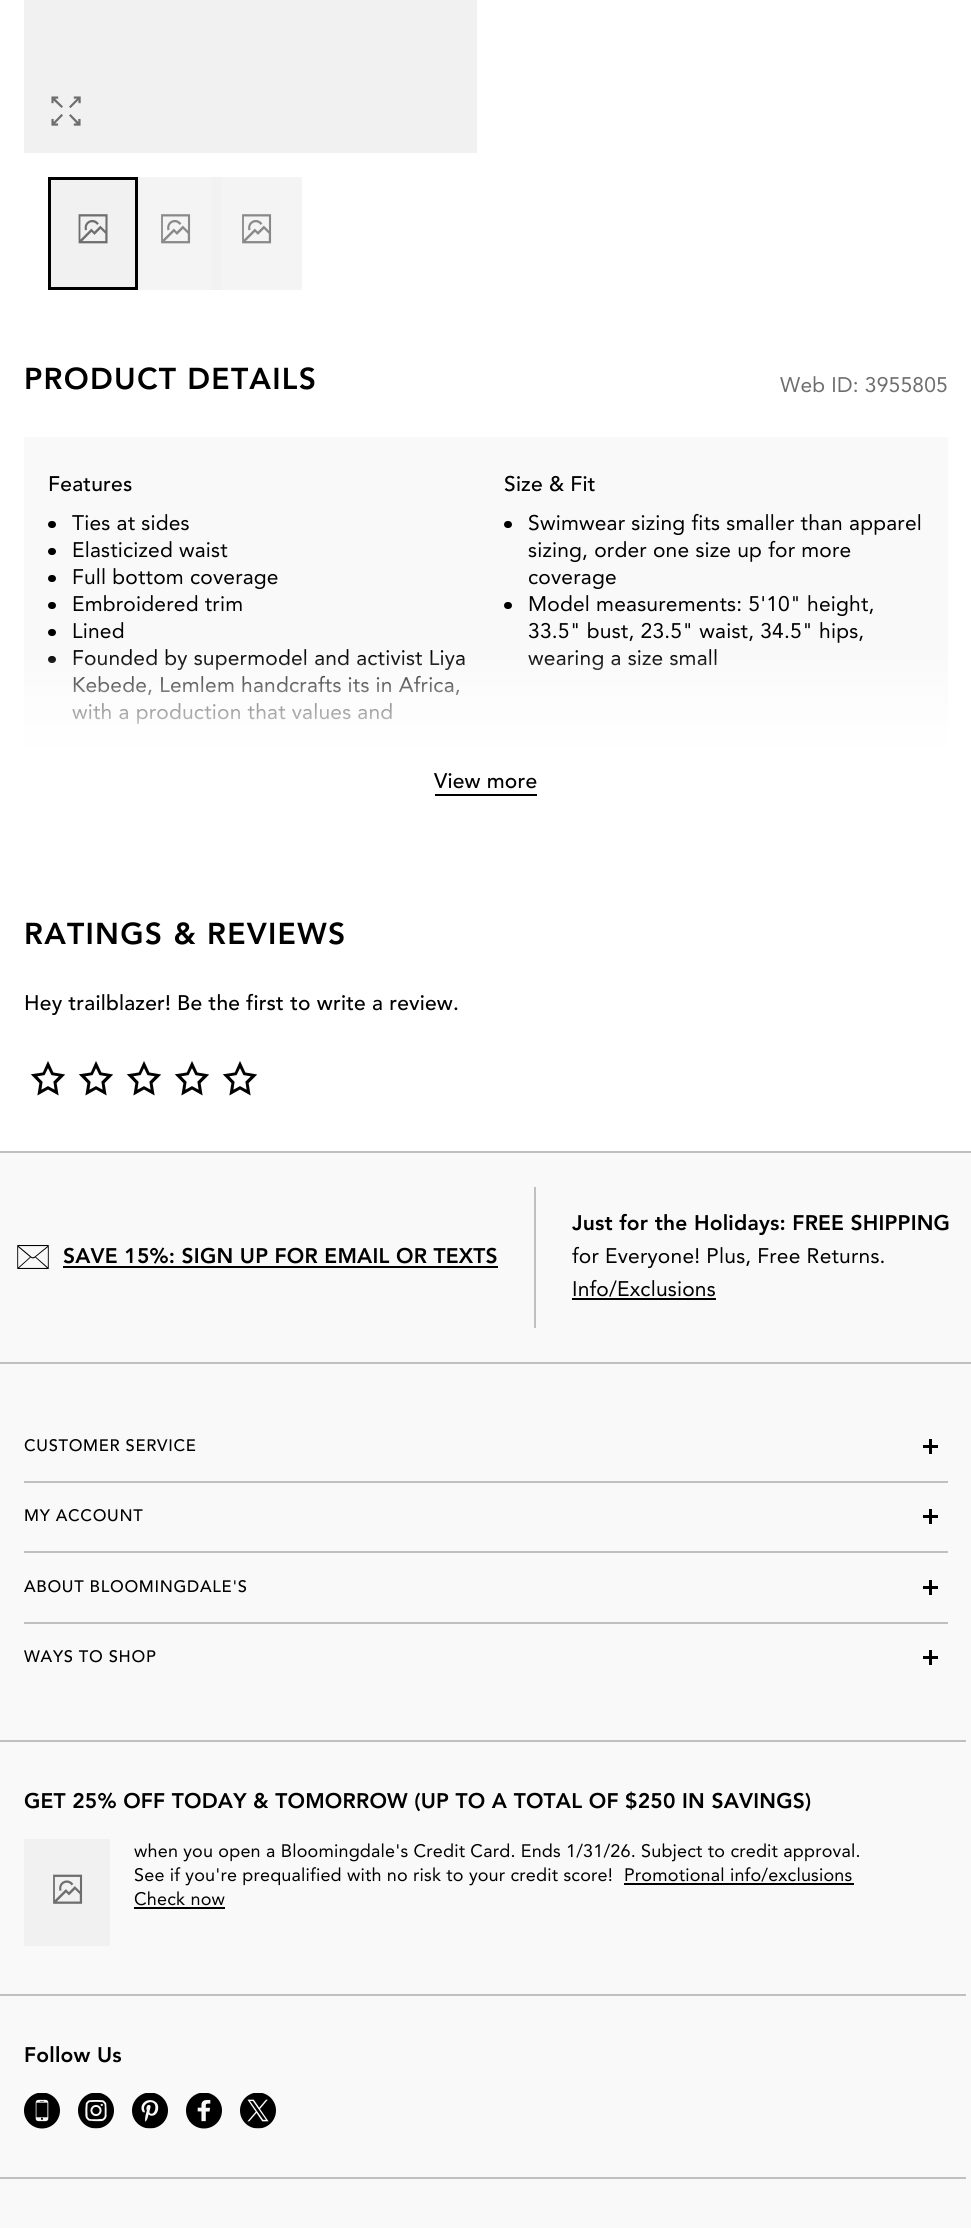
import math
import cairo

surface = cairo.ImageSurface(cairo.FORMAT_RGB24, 971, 2228)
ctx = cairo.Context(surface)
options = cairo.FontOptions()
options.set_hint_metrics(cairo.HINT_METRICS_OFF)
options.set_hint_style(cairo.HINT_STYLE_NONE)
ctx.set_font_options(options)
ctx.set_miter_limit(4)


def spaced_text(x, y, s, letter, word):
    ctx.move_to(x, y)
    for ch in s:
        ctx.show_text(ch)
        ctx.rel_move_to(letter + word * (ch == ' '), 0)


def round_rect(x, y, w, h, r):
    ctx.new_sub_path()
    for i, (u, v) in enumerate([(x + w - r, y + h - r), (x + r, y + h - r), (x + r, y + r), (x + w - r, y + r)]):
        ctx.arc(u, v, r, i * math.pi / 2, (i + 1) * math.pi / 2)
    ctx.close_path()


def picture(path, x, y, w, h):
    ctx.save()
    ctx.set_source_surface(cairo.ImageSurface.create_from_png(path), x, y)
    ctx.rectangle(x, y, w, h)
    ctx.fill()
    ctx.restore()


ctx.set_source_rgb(1, 1, 1)
ctx.paint()
ctx.set_source_rgb(0.957, 0.957, 0.957)
ctx.rectangle(221, 177, 81, 113)
ctx.fill()
ctx.rectangle(138, 177, 74, 113)
ctx.fill()
ctx.set_source_rgb(0.949, 0.949, 0.949)
ctx.rectangle(212, 177, 9, 113)
ctx.fill()
ctx.set_source_rgb(0.945, 0.945, 0.945)
ctx.rectangle(24, 0, 453, 153)
ctx.fill()
picture("img1.png", 51, 96, 30, 30)
ctx.rectangle(51, 180, 80, 107)
ctx.fill()
ctx.rectangle(131, 177, 4, 113)
ctx.fill()
picture("img2.png", 78, 214, 30, 30)
ctx.rectangle(49.5, 178.5, 87, 110)
ctx.set_source_rgb(0, 0, 0)
ctx.set_line_width(3)
ctx.stroke()
picture("img3.png", 161, 214, 30, 30)
picture("img3.png", 242, 214, 30, 30)
ctx.select_font_face("Avenir Black")
ctx.set_font_size(30)
spaced_text(24, 389, "PRODUCT DETAILS", 1.25, 0)
ctx.select_font_face("Avenir")
ctx.set_font_size(21)
ctx.set_source_rgb(0.431, 0.431, 0.431)
spaced_text(780, 392, "Web ID: 3955805", 0.2, 0)
ctx.set_source_rgb(0.973, 0.973, 0.973)
ctx.rectangle(24, 437, 924, 319)
ctx.fill()
ctx.select_font_face("Avenir Medium")
ctx.set_source_rgb(0, 0, 0)
spaced_text(48, 491, "Features", 0.2, 0)
round_rect(48, 521, 8, 7, 3.5)
ctx.fill()
ctx.select_font_face("Avenir")
spaced_text(72, 530, "Ties at sides", 0.2, 0)
round_rect(48, 548, 8, 7, 3.5)
ctx.fill()
spaced_text(72, 557, "Elasticized waist", 0.2, 0)
round_rect(48, 575, 8, 7, 3.5)
ctx.fill()
spaced_text(72, 584, "Full bottom coverage", 0.2, 0)
round_rect(48, 602, 8, 7, 3.5)
ctx.fill()
spaced_text(72, 611, "Embroidered trim", 0.2, 0)
round_rect(48, 629, 8, 7, 3.5)
ctx.fill()
spaced_text(72, 638, "Lined", 0.2, 0)
round_rect(48, 656, 8, 7, 3.5)
ctx.fill()
spaced_text(72, 665, "Founded by supermodel and activist Liya", 0.2, 0)
spaced_text(72, 692, "Kebede, Lemlem handcrafts its in Africa,", 0.2, 0)
spaced_text(72, 719, "with a production that values and", 0.2, 0)
ctx.select_font_face("Avenir Medium")
spaced_text(504, 491, "Size & Fit", 0.2, 0)
round_rect(504, 521, 8, 7, 3.5)
ctx.fill()
ctx.select_font_face("Avenir")
spaced_text(528, 530, "Swimwear sizing fits smaller than apparel", 0.2, 0)
spaced_text(528, 557, "sizing, order one size up for more", 0.2, 0)
spaced_text(528, 584, "coverage", 0.2, 0)
round_rect(504, 602, 8, 7, 3.5)
ctx.fill()
spaced_text(528, 611, "Model measurements: 5'10\" height,", 0.2, 0)
spaced_text(528, 638, "33.5\" bust, 23.5\" waist, 34.5\" hips,", 0.2, 0)
spaced_text(528, 665, "wearing a size small", 0.2, 0)
gradient = cairo.LinearGradient(486, 652, 486, 797)
gradient.add_color_stop_rgba(0, 1, 1, 1, 0)
gradient.add_color_stop_rgba(0.28, 1, 1, 1, 0.5)
gradient.add_color_stop_rgba(0.72, 1, 1, 1, 1)
ctx.set_source(gradient)
ctx.rectangle(24, 654, 924, 102)
ctx.fill()
ctx.select_font_face("Avenir Medium")
ctx.set_source_rgb(0, 0, 0)
spaced_text(434, 788, "View more", 0.2, 0)
ctx.rectangle(435, 794, 102, 2)
ctx.fill()
ctx.select_font_face("Avenir Black")
ctx.set_font_size(30)
spaced_text(24, 944, "RATINGS & REVIEWS", 1.25, 0)
ctx.select_font_face("Avenir Medium")
ctx.set_font_size(21)
spaced_text(24, 1010, "Hey trailblazer! Be the first to write a review.", 0.2, 0)
picture("img4.png", 30, 1061, 36, 35)
picture("img4.png", 78, 1061, 36, 35)
picture("img4.png", 126, 1061, 36, 35)
picture("img4.png", 174, 1061, 36, 35)
picture("img4.png", 222, 1061, 36, 35)
ctx.set_source_rgb(0.973, 0.973, 0.973)
ctx.rectangle(0, 1153, 971, 209)
ctx.fill()
ctx.set_source_rgb(0.753, 0.753, 0.753)
ctx.rectangle(0, 1151, 971, 2)
ctx.fill()
ctx.rectangle(0, 1362, 971, 2)
ctx.fill()
picture("img5.png", 17, 1245, 32, 24)
ctx.select_font_face("Avenir Black")
ctx.set_source_rgb(0, 0, 0)
spaced_text(63, 1263, "SAVE 15%: SIGN UP FOR EMAIL OR TEXTS", 0.2, 0)
ctx.rectangle(63, 1266, 435, 2)
ctx.fill()
ctx.set_source_rgb(0.753, 0.753, 0.753)
ctx.rectangle(534, 1187, 2, 141)
ctx.fill()
ctx.set_source_rgb(0, 0, 0)
spaced_text(572, 1230, "Just for the Holidays: FREE SHIPPING", 0.2, 0)
ctx.select_font_face("Avenir")
spaced_text(572, 1263, "for Everyone! Plus, Free Returns.", 0.2, 0)
spaced_text(572, 1296, "Info/Exclusions", 0.2, 0)
ctx.rectangle(572, 1298, 144, 2)
ctx.fill()
ctx.set_source_rgb(0.973, 0.973, 0.973)
ctx.rectangle(0, 1364, 971, 864)
ctx.fill()
ctx.set_source_rgb(0.753, 0.753, 0.753)
ctx.rectangle(24, 1481, 924, 2)
ctx.fill()
ctx.select_font_face("Avenir Medium")
ctx.set_font_size(16.5)
ctx.set_source_rgb(0, 0, 0)
spaced_text(24, 1451, "CUSTOMER SERVICE", 0.7, 0)
ctx.rectangle(923, 1445, 15, 3)
ctx.fill()
ctx.rectangle(929, 1439, 3, 15)
ctx.fill()
ctx.set_source_rgb(0.753, 0.753, 0.753)
ctx.rectangle(24, 1551, 924, 2)
ctx.fill()
ctx.set_source_rgb(0, 0, 0)
spaced_text(24, 1521, "MY ACCOUNT", 0.7, 0)
ctx.rectangle(923, 1515, 15, 3)
ctx.fill()
ctx.rectangle(929, 1509, 3, 15)
ctx.fill()
ctx.set_source_rgb(0.753, 0.753, 0.753)
ctx.rectangle(24, 1622, 924, 2)
ctx.fill()
ctx.set_source_rgb(0, 0, 0)
spaced_text(24, 1592, "ABOUT BLOOMINGDALE'S", 0.7, 0)
ctx.rectangle(923, 1586, 15, 3)
ctx.fill()
ctx.rectangle(929, 1580, 3, 15)
ctx.fill()
spaced_text(24, 1662, "WAYS TO SHOP", 0.7, 0)
ctx.rectangle(923, 1656, 15, 3)
ctx.fill()
ctx.rectangle(929, 1650, 3, 15)
ctx.fill()
ctx.set_source_rgb(0.753, 0.753, 0.753)
ctx.rectangle(0, 1740, 966, 2)
ctx.fill()
ctx.select_font_face("Avenir Black")
ctx.set_font_size(21)
ctx.set_source_rgb(0, 0, 0)
spaced_text(24, 1808, "GET 25% OFF TODAY & TOMORROW (UP TO A TOTAL OF $250 IN SAVINGS)", 0.2, 0)
ctx.set_source_rgb(0.945, 0.945, 0.945)
ctx.rectangle(24, 1839, 86, 107)
ctx.fill()
picture("img6.png", 53, 1874, 30, 30)
ctx.select_font_face("Avenir")
ctx.set_font_size(18)
ctx.set_source_rgb(0, 0, 0)
spaced_text(134, 1857, "when you open a Bloomingdale's Credit Card. Ends 1/31/26. Subject to credit approval.", 0.18, 0)
spaced_text(134, 1881, "See if you're prequalified with no risk to your credit score!", 0.18, 0)
spaced_text(624, 1881, "Promotional info/exclusions", 0.18, 0)
ctx.rectangle(624, 1883, 230, 2)
ctx.fill()
spaced_text(134, 1905, "Check now", 0.18, 0)
ctx.rectangle(134, 1907, 91, 2)
ctx.fill()
ctx.set_source_rgb(0.753, 0.753, 0.753)
ctx.rectangle(0, 1994, 966, 2)
ctx.fill()
ctx.select_font_face("Avenir Black")
ctx.set_font_size(21)
ctx.set_source_rgb(0, 0, 0)
spaced_text(24, 2062, "Follow Us", 0.2, 0)
picture("img7.png", 24, 2093, 36, 36)
picture("img8.png", 78, 2093, 36, 36)
picture("img9.png", 132, 2093, 36, 36)
picture("img10.png", 186, 2093, 36, 36)
picture("img11.png", 240, 2093, 36, 36)
ctx.set_source_rgb(0.753, 0.753, 0.753)
ctx.rectangle(0, 2177, 966, 2)
ctx.fill()
surface.write_to_png("page.png")
